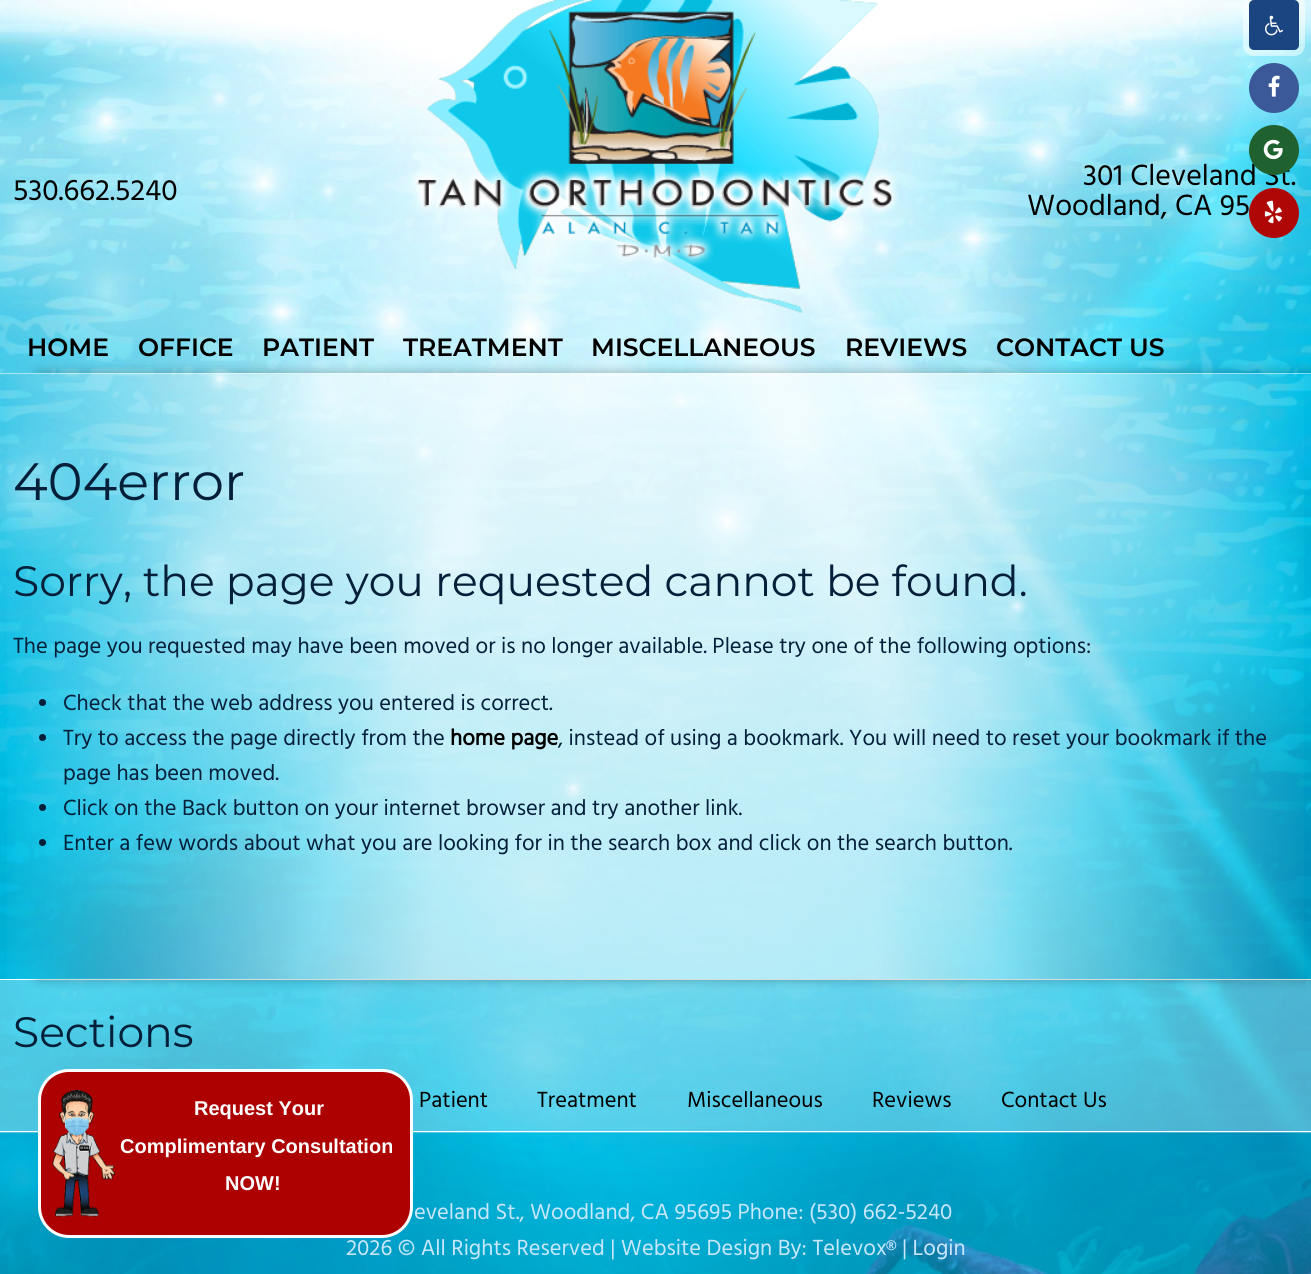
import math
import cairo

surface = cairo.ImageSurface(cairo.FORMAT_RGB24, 1311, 1274)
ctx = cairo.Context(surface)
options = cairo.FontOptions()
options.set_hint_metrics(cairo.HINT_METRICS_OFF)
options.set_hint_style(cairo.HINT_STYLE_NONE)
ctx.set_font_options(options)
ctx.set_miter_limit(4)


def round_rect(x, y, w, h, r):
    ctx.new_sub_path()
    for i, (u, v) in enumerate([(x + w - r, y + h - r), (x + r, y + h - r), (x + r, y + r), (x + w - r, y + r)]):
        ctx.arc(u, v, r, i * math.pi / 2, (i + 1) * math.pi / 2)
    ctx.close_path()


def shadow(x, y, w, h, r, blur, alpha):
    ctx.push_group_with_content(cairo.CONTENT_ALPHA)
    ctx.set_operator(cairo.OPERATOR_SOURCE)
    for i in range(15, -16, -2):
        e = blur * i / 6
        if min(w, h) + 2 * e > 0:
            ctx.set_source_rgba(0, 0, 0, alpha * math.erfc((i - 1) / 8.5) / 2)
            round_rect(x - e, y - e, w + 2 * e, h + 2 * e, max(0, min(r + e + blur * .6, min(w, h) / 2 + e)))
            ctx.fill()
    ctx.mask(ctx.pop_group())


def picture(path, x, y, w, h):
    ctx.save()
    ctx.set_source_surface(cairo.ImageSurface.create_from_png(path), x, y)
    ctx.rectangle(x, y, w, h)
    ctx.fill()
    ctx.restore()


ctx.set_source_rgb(1, 1, 1)
ctx.paint()
picture("img1.png", 0, 0, 1311, 979)
round_rect(1246, -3, 56, 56, 8)
ctx.set_source_rgba(1, 1, 1, 0.5)
ctx.set_line_width(6)
ctx.stroke()
ctx.set_source_rgb(0.106, 0.271, 0.506)
round_rect(1249, 0, 50, 50, 5)
ctx.fill()
picture("img2.png", 1265, 15, 19, 21)
picture("img3.png", 411, 0, 488, 313)
ctx.set_source_rgb(0.231, 0.349, 0.596)
ctx.arc(1274, 88, 25, 0, 2 * math.pi)
ctx.fill()
picture("img4.png", 1268, 75, 12, 22)
ctx.select_font_face("Hind")
ctx.set_font_size(30)
ctx.set_source_rgb(0, 0, 0)
ctx.move_to(1083, 185)
ctx.show_text("301 Cleveland St.")
ctx.set_source_rgb(0.122, 0.38, 0.184)
ctx.new_path()
ctx.arc(1274, 150, 25, 0, 2 * math.pi)
ctx.fill()
picture("img5.png", 1263, 139, 20, 21)
ctx.set_source_rgb(0.686, 0.024, 0.024)
ctx.arc(1274, 213, 25, 0, 2 * math.pi)
ctx.fill()
picture("img6.png", 1264, 200, 18, 24)
ctx.set_source_rgb(0, 0, 0)
ctx.move_to(13, 200)
ctx.show_text("530.662.5240")
ctx.move_to(1027, 215)
ctx.show_text("Woodland, CA 95")
picture("img8.png", 0, 978, 1311, 296)
ctx.set_source_rgba(1, 1, 1, 0.3)
ctx.rectangle(0, 980, 1311, 153)
ctx.fill()
ctx.set_source_rgb(1, 1, 1)
ctx.rectangle(0, 979, 1311, 1)
ctx.fill()
ctx.save()
ctx.set_fill_rule(cairo.FILL_RULE_EVEN_ODD)
ctx.new_path()
ctx.move_to(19, 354)
ctx.line_to(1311, 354)
ctx.line_to(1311, 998)
ctx.line_to(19, 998)
ctx.close_path()
ctx.move_to(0, 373)
ctx.line_to(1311, 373)
ctx.line_to(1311, 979)
ctx.line_to(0, 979)
ctx.close_path()
ctx.clip()
ctx.set_source_rgb(0, 0, 0)
shadow(38, 373, 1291, 606, 0, 6, 0.3)
ctx.restore()
ctx.select_font_face("Montserrat SemiBold")
ctx.set_font_size(25)
ctx.set_source_rgb(0, 0, 0)
ctx.move_to(27, 356)
ctx.show_text("HOME")
ctx.move_to(138, 356)
ctx.show_text("OFFICE")
ctx.move_to(262, 356)
ctx.show_text("PATIENT")
ctx.move_to(403, 356)
ctx.show_text("TREATMENT")
ctx.move_to(591, 356)
ctx.show_text("MISCELLANEOUS")
ctx.move_to(845, 356)
ctx.show_text("REVIEWS")
ctx.move_to(996, 356)
ctx.show_text("CONTACT US")
gradient = cairo.LinearGradient(0, 676, 1311, 676)
gradient.add_color_stop_rgba(0, 1, 1, 1, 0.01)
gradient.add_color_stop_rgba(0.33, 1, 1, 1, 0.7)
gradient.add_color_stop_rgba(0.67, 1, 1, 1, 0.7)
gradient.add_color_stop_rgba(1, 1, 1, 1, 0.01)
ctx.set_source(gradient)
ctx.rectangle(7, 373, 1297, 606)
ctx.fill()
ctx.set_source_rgba(1, 1, 1, 0.5)
ctx.rectangle(0, 373, 1311, 1)
ctx.fill()
ctx.select_font_face("Montserrat")
ctx.set_font_size(52.5)
ctx.set_source_rgb(0.012, 0.122, 0.227)
ctx.move_to(13, 500)
ctx.show_text("404error")
ctx.set_font_size(42.5)
ctx.move_to(13, 596)
ctx.show_text("Sorry, the page you requested cannot be found.")
ctx.select_font_face("Hind")
ctx.set_font_size(22.5)
ctx.move_to(13, 653)
ctx.show_text("The page you requested may have been moved or is no longer available. Please try one of the following options:")
ctx.new_path()
ctx.arc(42.5, 702.5, 3.5, 0, 2 * math.pi)
ctx.fill()
ctx.move_to(63, 710)
ctx.show_text("Check that the web address you entered is correct.")
ctx.new_path()
ctx.arc(42.5, 737.5, 3.5, 0, 2 * math.pi)
ctx.fill()
ctx.move_to(63, 745)
ctx.show_text("Try to access the page directly from the")
ctx.select_font_face("Hind", cairo.FONT_SLANT_NORMAL, cairo.FONT_WEIGHT_BOLD)
ctx.set_source_rgb(0, 0, 0)
ctx.move_to(450, 745)
ctx.show_text("home page")
ctx.select_font_face("Hind")
ctx.set_source_rgb(0.012, 0.122, 0.227)
ctx.move_to(558, 745)
ctx.show_text(", instead of using a bookmark. You will need to reset your bookmark if the")
ctx.move_to(63, 780)
ctx.show_text("page has been moved.")
ctx.new_path()
ctx.arc(42.5, 807.5, 3.5, 0, 2 * math.pi)
ctx.fill()
ctx.move_to(63, 815)
ctx.show_text("Click on the Back button on your internet browser and try another link.")
ctx.new_path()
ctx.arc(42.5, 842.5, 3.5, 0, 2 * math.pi)
ctx.fill()
ctx.move_to(63, 850)
ctx.show_text("Enter a few words about what you are looking for in the search box and click on the search button.")
ctx.set_source_rgb(1, 1, 1)
ctx.rectangle(0, 1131, 1311, 1)
ctx.fill()
ctx.set_source_rgb(0.678, 0, 0)
round_rect(39.5, 1070.5, 372, 166, 29.5)
ctx.fill_preserve()
ctx.set_source_rgb(1, 1, 1)
ctx.set_line_width(3)
ctx.stroke()
picture("img7.png", 52, 1090, 63, 127)
ctx.select_font_face("Liberation Sans", cairo.FONT_SLANT_NORMAL, cairo.FONT_WEIGHT_BOLD)
ctx.set_font_size(20)
ctx.move_to(194, 1115)
ctx.show_text("Request Your")
ctx.move_to(120, 1153)
ctx.show_text("Complimentary Consultation")
ctx.move_to(225, 1190)
ctx.show_text("NOW!")
ctx.select_font_face("Montserrat")
ctx.set_font_size(42.5)
ctx.set_source_rgb(0.012, 0.122, 0.227)
ctx.move_to(13, 1047)
ctx.show_text("Sections")
ctx.select_font_face("Hind")
ctx.set_font_size(22.5)
ctx.set_source_rgb(0, 0, 0)
ctx.move_to(419, 1107)
ctx.show_text("Patient")
ctx.move_to(537, 1107)
ctx.show_text("Treatment")
ctx.move_to(687, 1107)
ctx.show_text("Miscellaneous")
ctx.move_to(872, 1107)
ctx.show_text("Reviews")
ctx.move_to(1001, 1107)
ctx.show_text("Contact Us")
ctx.set_source_rgb(0.788, 0.906, 1)
ctx.move_to(414, 1219)
ctx.show_text("eveland St., Woodland, CA 95695 Phone: (530) 662-5240")
ctx.move_to(346, 1255)
ctx.show_text("2026 © All Rights Reserved | Website Design By: Televox")
picture("img9.png", 886, 1240, 11, 11)
ctx.move_to(902, 1255)
ctx.show_text("| Login")
surface.write_to_png("page.png")
